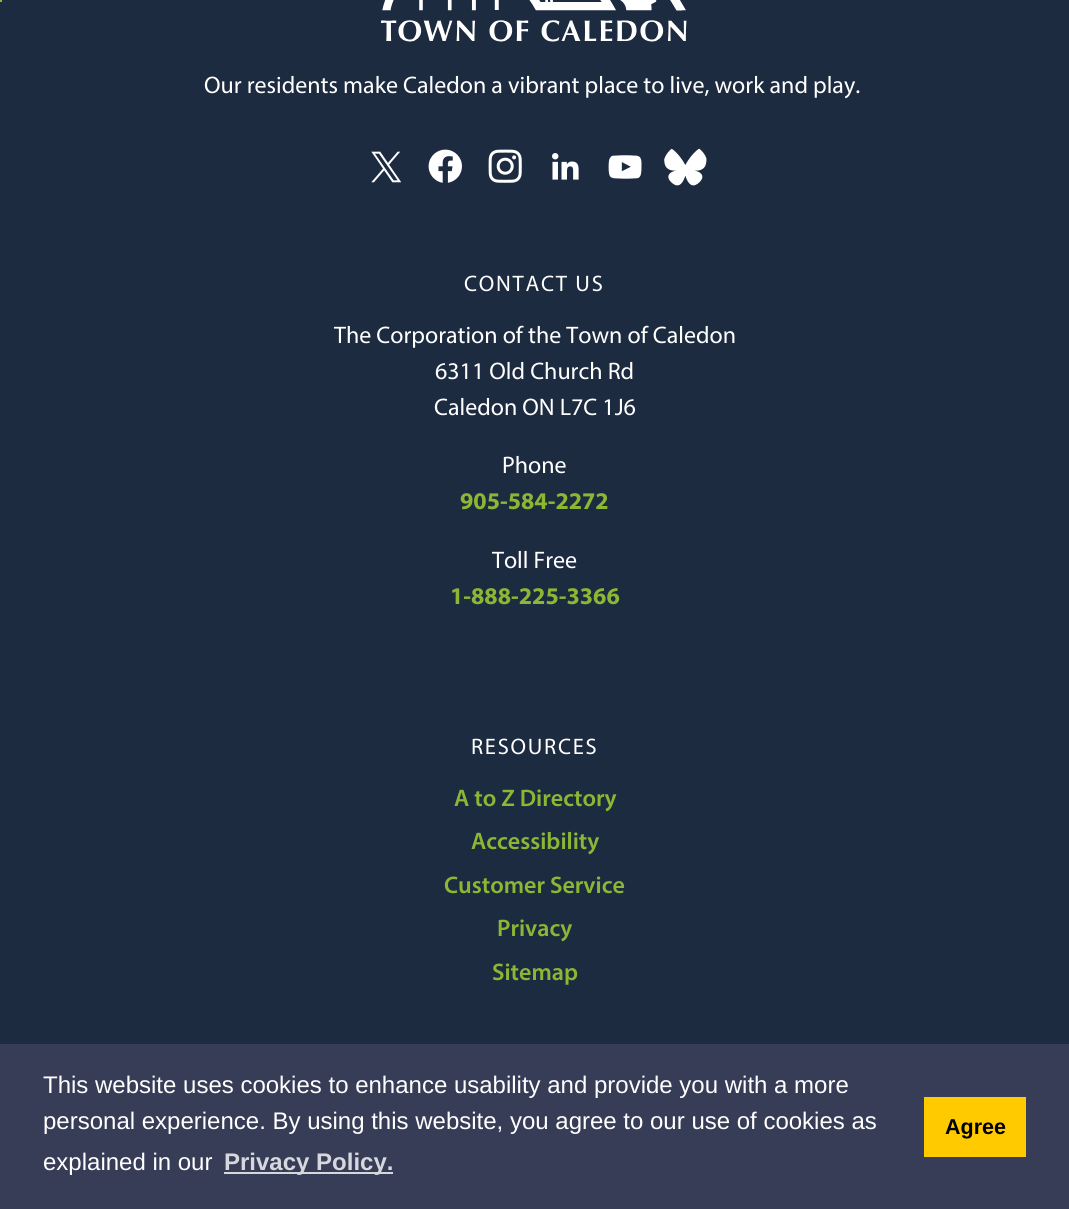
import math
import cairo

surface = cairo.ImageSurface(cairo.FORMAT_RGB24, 1069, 1209)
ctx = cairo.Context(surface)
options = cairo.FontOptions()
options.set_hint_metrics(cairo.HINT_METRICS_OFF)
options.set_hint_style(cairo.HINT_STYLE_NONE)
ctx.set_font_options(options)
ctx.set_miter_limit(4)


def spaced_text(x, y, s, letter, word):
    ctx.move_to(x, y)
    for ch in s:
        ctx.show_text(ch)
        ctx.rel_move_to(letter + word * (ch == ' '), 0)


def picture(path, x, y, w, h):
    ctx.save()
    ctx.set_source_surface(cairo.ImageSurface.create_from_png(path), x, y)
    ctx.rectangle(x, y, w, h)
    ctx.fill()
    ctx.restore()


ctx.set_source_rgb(0.114, 0.169, 0.251)
ctx.paint()
ctx.set_source_rgb(0.549, 0.718, 0.204)
ctx.rectangle(0, 0, 2, 2)
ctx.fill()
picture("img1.png", 381, 0, 306, 42)
ctx.select_font_face("Myriad")
ctx.set_font_size(24)
ctx.set_source_rgb(1, 1, 1)
ctx.move_to(204, 93)
ctx.show_text("Our residents make Caledon a vibrant place to live, work and play.")
picture("img2.png", 371, 151, 30, 32)
picture("img3.png", 428, 149, 34, 34)
picture("img4.png", 488, 149, 34, 34)
picture("img5.png", 552, 153, 27, 27)
picture("img6.png", 608, 155, 34, 24)
picture("img7.png", 664, 148, 43, 38)
ctx.set_font_size(22.5)
spaced_text(464, 291, "CONTACT US", 1.75, 0)
ctx.set_font_size(24)
ctx.move_to(334, 343)
ctx.show_text("The Corporation of the Town of Caledon")
ctx.move_to(435, 379)
ctx.show_text("6311 Old Church Rd")
ctx.move_to(434, 415)
ctx.show_text("Caledon ON L7C 1J6")
ctx.move_to(502, 473)
ctx.show_text("Phone")
ctx.select_font_face("Myriad", cairo.FONT_SLANT_NORMAL, cairo.FONT_WEIGHT_BOLD)
ctx.set_source_rgb(0.549, 0.718, 0.204)
ctx.move_to(460, 509)
ctx.show_text("905-584-2272")
ctx.select_font_face("Myriad")
ctx.set_source_rgb(1, 1, 1)
ctx.move_to(492, 568)
ctx.show_text("Toll Free")
ctx.select_font_face("Myriad", cairo.FONT_SLANT_NORMAL, cairo.FONT_WEIGHT_BOLD)
ctx.set_source_rgb(0.549, 0.718, 0.204)
ctx.move_to(450, 604)
ctx.show_text("1-888-225-3366")
ctx.select_font_face("Myriad")
ctx.set_font_size(22.5)
ctx.set_source_rgb(1, 1, 1)
spaced_text(471, 754, "RESOURCES", 1.75, 0)
ctx.select_font_face("Myriad SemiBold")
ctx.set_font_size(24)
ctx.set_source_rgb(0.549, 0.718, 0.204)
ctx.move_to(454, 806)
ctx.show_text("A to Z Directory")
ctx.move_to(471, 849)
ctx.show_text("Accessibility")
ctx.move_to(444, 893)
ctx.show_text("Customer Service")
ctx.move_to(497, 936)
ctx.show_text("Privacy")
ctx.move_to(492, 980)
ctx.show_text("Sitemap")
ctx.set_source_rgb(0.216, 0.239, 0.341)
ctx.rectangle(0, 1044, 1069, 165)
ctx.fill()
ctx.select_font_face("Liberation Sans")
ctx.set_source_rgb(1, 1, 1)
ctx.move_to(43, 1093)
ctx.show_text("This website uses cookies to enhance usability and provide you with a more")
ctx.move_to(43, 1129)
ctx.show_text("personal experience. By using this website, you agree to our use of cookies as")
ctx.move_to(43, 1170)
ctx.show_text("explained in our")
ctx.set_source_rgb(0.843, 0.847, 0.867)
ctx.rectangle(224, 1172, 169, 2)
ctx.fill()
ctx.select_font_face("Liberation Sans", cairo.FONT_SLANT_NORMAL, cairo.FONT_WEIGHT_BOLD)
ctx.move_to(224, 1170)
ctx.show_text("Privacy Policy.")
ctx.set_source_rgb(1, 0.792, 0)
ctx.rectangle(924, 1097, 102, 60)
ctx.fill()
ctx.set_font_size(21.5)
ctx.set_source_rgb(0, 0, 0)
ctx.move_to(945, 1134)
ctx.show_text("Agree")
surface.write_to_png("page.png")
